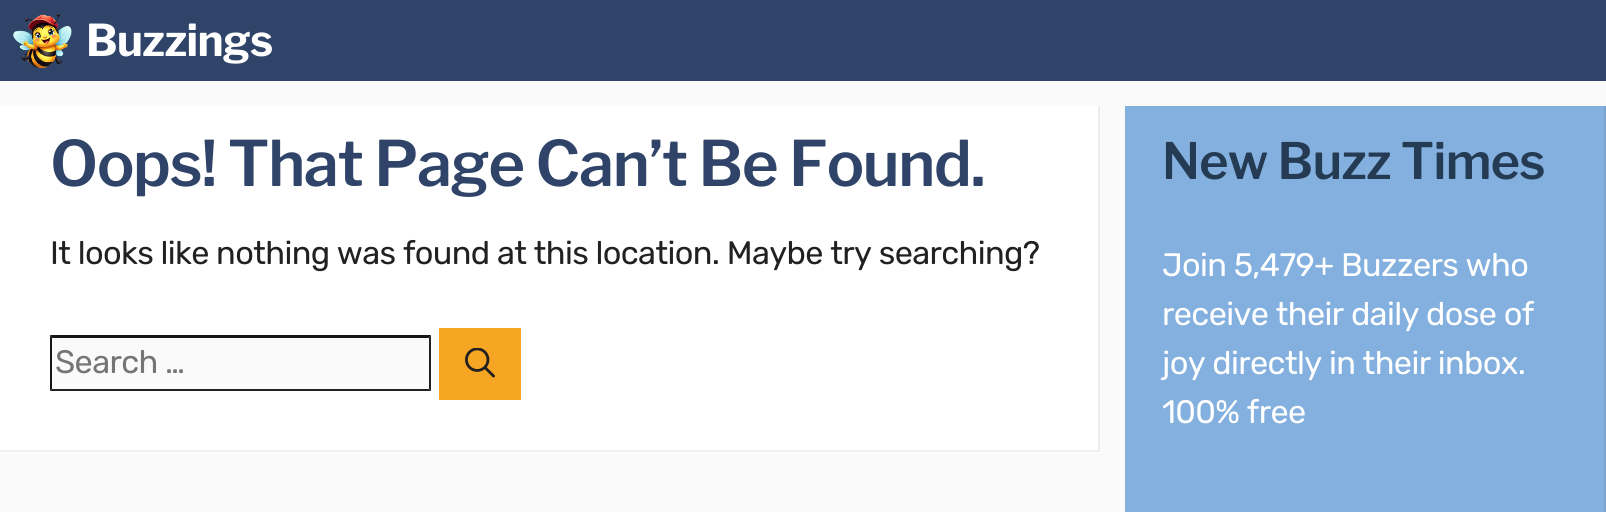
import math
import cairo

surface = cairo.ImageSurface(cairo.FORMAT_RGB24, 1606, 512)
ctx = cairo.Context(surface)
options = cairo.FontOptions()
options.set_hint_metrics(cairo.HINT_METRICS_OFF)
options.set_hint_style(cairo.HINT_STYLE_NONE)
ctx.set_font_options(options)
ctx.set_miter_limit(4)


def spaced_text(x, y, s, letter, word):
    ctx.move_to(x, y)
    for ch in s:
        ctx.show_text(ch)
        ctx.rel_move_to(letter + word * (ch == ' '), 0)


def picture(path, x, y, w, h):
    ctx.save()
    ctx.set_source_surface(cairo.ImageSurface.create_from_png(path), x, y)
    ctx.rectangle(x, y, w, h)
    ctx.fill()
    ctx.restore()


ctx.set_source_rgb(0.98, 0.98, 0.98)
ctx.paint()
ctx.set_source_rgb(0.184, 0.267, 0.408)
ctx.rectangle(0, 0, 1606, 81)
ctx.fill()
picture("img1.png", 13, 13, 59, 55)
ctx.select_font_face("Libre Franklin", cairo.FONT_SLANT_NORMAL, cairo.FONT_WEIGHT_BOLD)
ctx.set_font_size(43.75)
ctx.set_source_rgb(1, 1, 1)
spaced_text(86, 56, "Buzzings", -0.62, 0)
ctx.rectangle(0, 106, 1100, 347)
ctx.fill()
ctx.set_source_rgb(0.929, 0.929, 0.929)
ctx.new_path()
ctx.move_to(1100, 106)
ctx.line_to(1100, 452)
ctx.line_to(1098, 450)
ctx.line_to(1098, 106)
ctx.close_path()
ctx.fill()
ctx.set_source_rgba(0, 0, 0, 0.07)
ctx.new_path()
ctx.move_to(1100, 452)
ctx.line_to(0, 452)
ctx.line_to(0, 450)
ctx.line_to(1098, 450)
ctx.close_path()
ctx.fill()
ctx.select_font_face("Libre Franklin SemiBold")
ctx.set_font_size(62.5)
ctx.set_source_rgb(0.184, 0.267, 0.408)
spaced_text(50, 186, "Oops! That Page Can’t Be Found.", -1.25, 0)
ctx.select_font_face("Rubik Light")
ctx.set_font_size(32.5)
ctx.set_source_rgb(0.129, 0.129, 0.129)
spaced_text(50, 264, "It looks like nothing was found at this location. Maybe try searching?", -0.62, 0)
ctx.set_source_rgb(0.98, 0.98, 0.98)
ctx.rectangle(50, 335, 381, 56)
ctx.fill()
ctx.set_source_rgb(0.086, 0.086, 0.086)
ctx.new_path()
ctx.move_to(50, 335)
ctx.line_to(431, 335)
ctx.line_to(429, 338)
ctx.line_to(52, 338)
ctx.close_path()
ctx.fill()
ctx.set_source_rgb(0.129, 0.129, 0.129)
ctx.new_path()
ctx.move_to(431, 335)
ctx.line_to(431, 391)
ctx.line_to(429, 389)
ctx.line_to(429, 338)
ctx.close_path()
ctx.fill()
ctx.new_path()
ctx.move_to(431, 391)
ctx.line_to(50, 391)
ctx.line_to(52, 389)
ctx.line_to(429, 389)
ctx.close_path()
ctx.fill()
ctx.set_source_rgb(0.086, 0.086, 0.086)
ctx.new_path()
ctx.move_to(50, 391)
ctx.line_to(50, 335)
ctx.line_to(52, 338)
ctx.line_to(52, 389)
ctx.close_path()
ctx.fill()
ctx.set_source_rgb(0.459, 0.459, 0.459)
spaced_text(55, 373, "Search …", -0.62, 0)
ctx.set_source_rgb(0.961, 0.651, 0.137)
ctx.rectangle(439, 328, 82, 72)
ctx.fill()
picture("img2.png", 465, 348, 30, 30)
ctx.set_source_rgb(0.514, 0.69, 0.871)
ctx.rectangle(1125, 106, 479, 406)
ctx.fill()
ctx.set_source_rgb(0.478, 0.643, 0.808)
ctx.new_path()
ctx.move_to(1606, 106)
ctx.line_to(1606, 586)
ctx.line_to(1604, 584)
ctx.line_to(1604, 106)
ctx.close_path()
ctx.fill()
ctx.select_font_face("Libre Franklin SemiBold")
ctx.set_font_size(50)
ctx.set_source_rgb(0.141, 0.231, 0.325)
spaced_text(1162, 179, "New Buzz Times", -0.62, 0)
ctx.select_font_face("Rubik Light")
ctx.set_font_size(32.5)
ctx.set_source_rgb(1, 1, 1)
spaced_text(1162, 276, "Join 5,479+ Buzzers who", -0.62, 0)
spaced_text(1162, 325, "receive their daily dose of", -0.62, 0)
spaced_text(1162, 374, "joy directly in their inbox.", -0.62, 0)
spaced_text(1162, 423, "100% free", -0.62, 0)
surface.write_to_png("page.png")
